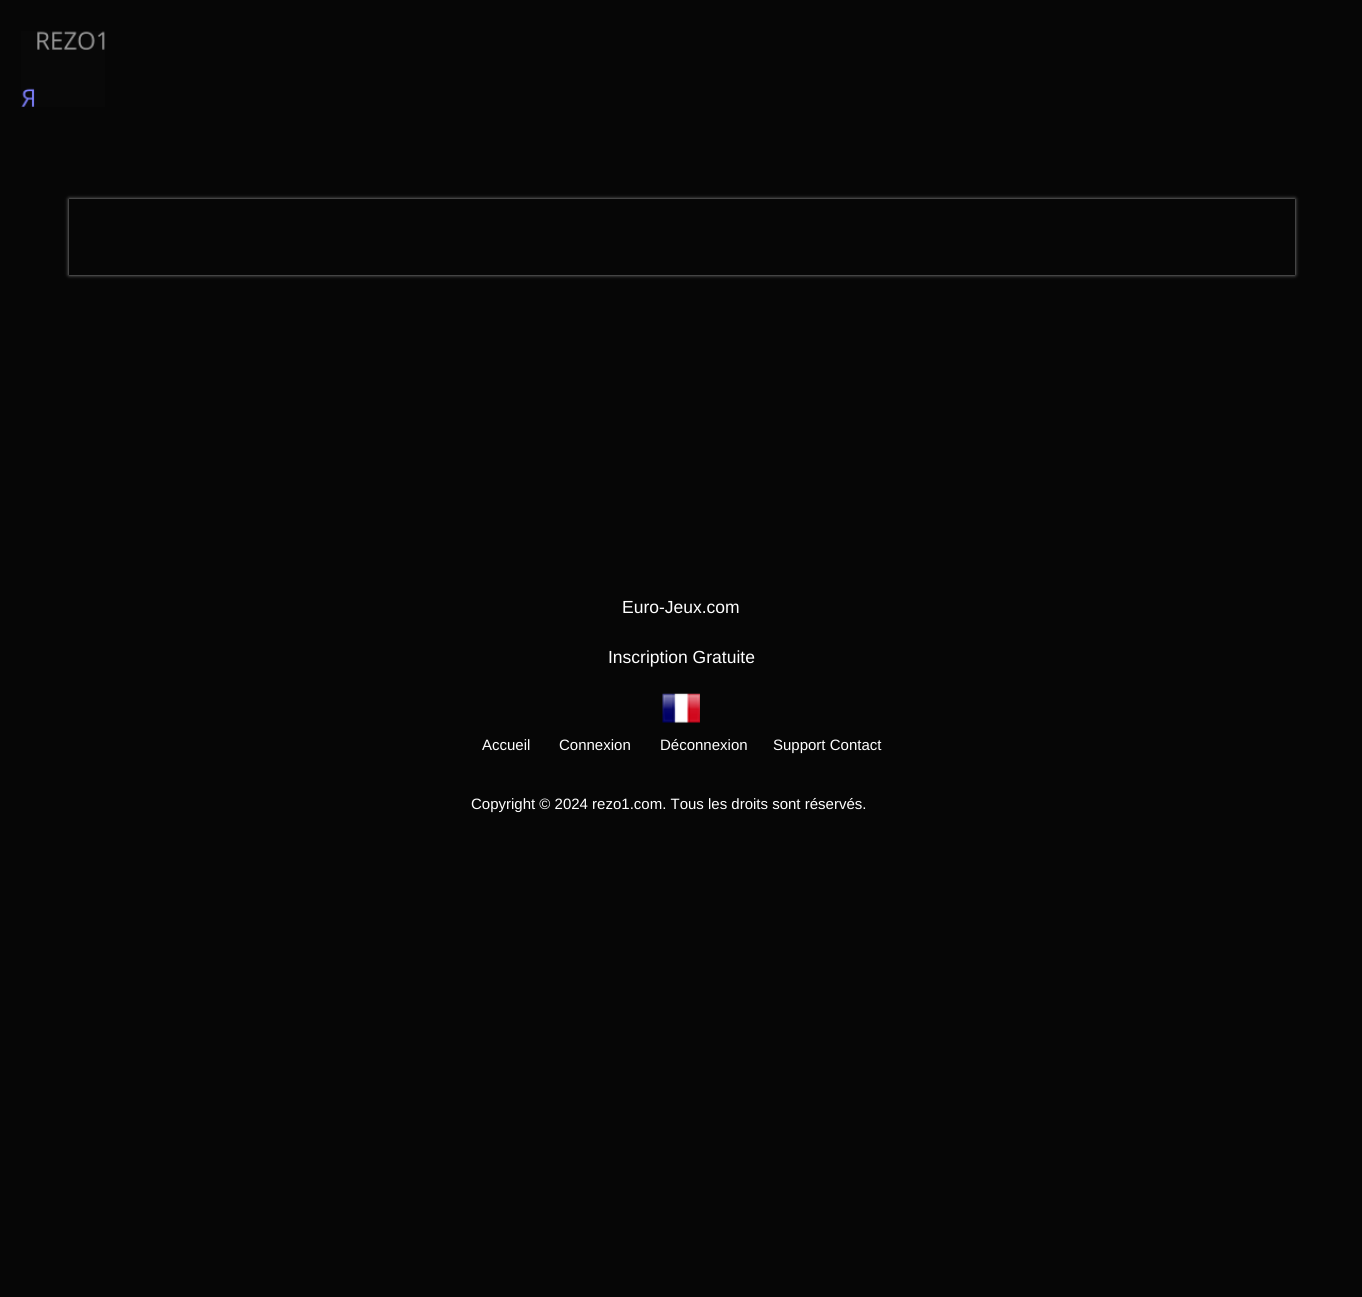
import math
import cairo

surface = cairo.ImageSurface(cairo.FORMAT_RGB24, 1362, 1297)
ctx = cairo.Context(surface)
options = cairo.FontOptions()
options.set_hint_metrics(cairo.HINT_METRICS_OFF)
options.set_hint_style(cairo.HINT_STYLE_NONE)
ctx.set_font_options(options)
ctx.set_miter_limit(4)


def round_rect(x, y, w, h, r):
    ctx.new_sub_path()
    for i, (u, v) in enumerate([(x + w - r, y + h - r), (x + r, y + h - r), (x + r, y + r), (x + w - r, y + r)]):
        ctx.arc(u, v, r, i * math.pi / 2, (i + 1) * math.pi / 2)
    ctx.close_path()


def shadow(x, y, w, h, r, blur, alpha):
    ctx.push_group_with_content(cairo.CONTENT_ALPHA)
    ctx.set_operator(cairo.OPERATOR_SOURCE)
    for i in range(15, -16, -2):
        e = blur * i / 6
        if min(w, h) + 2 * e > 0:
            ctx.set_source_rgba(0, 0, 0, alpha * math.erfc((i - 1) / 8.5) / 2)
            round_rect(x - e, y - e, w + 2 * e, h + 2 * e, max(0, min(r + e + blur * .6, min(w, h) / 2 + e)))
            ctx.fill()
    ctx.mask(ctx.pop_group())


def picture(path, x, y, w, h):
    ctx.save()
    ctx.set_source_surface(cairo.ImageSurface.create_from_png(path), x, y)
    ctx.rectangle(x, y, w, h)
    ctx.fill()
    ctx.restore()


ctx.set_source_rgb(0.024, 0.024, 0.024)
ctx.paint()
picture("img1.png", 21, 31, 84, 76)
ctx.save()
ctx.set_fill_rule(cairo.FILL_RULE_EVEN_ODD)
ctx.new_path()
ctx.move_to(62, 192)
ctx.line_to(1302, 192)
ctx.line_to(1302, 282)
ctx.line_to(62, 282)
ctx.close_path()
ctx.move_to(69, 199)
ctx.line_to(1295, 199)
ctx.line_to(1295, 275)
ctx.line_to(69, 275)
ctx.close_path()
ctx.clip()
ctx.set_source_rgb(0.6, 0.6, 0.6)
shadow(69, 199, 1226, 76, 0, 2, 1)
ctx.restore()
ctx.select_font_face("Liberation Sans")
ctx.set_font_size(17.5)
ctx.set_source_rgb(1, 1, 1)
ctx.move_to(622, 613)
ctx.show_text("Euro-Jeux.com")
ctx.move_to(608, 663)
ctx.show_text("Inscription Gratuite")
picture("img2.png", 662, 693, 38, 30)
ctx.set_font_size(15)
ctx.move_to(482, 750)
ctx.show_text("Accueil")
ctx.move_to(559, 750)
ctx.show_text("Connexion")
ctx.move_to(660, 750)
ctx.show_text("Déconnexion")
ctx.move_to(773, 750)
ctx.show_text("Support Contact")
ctx.move_to(471, 809)
ctx.show_text("Copyright © 2024 rezo1.com. Tous les droits sont réservés.")
surface.write_to_png("page.png")
